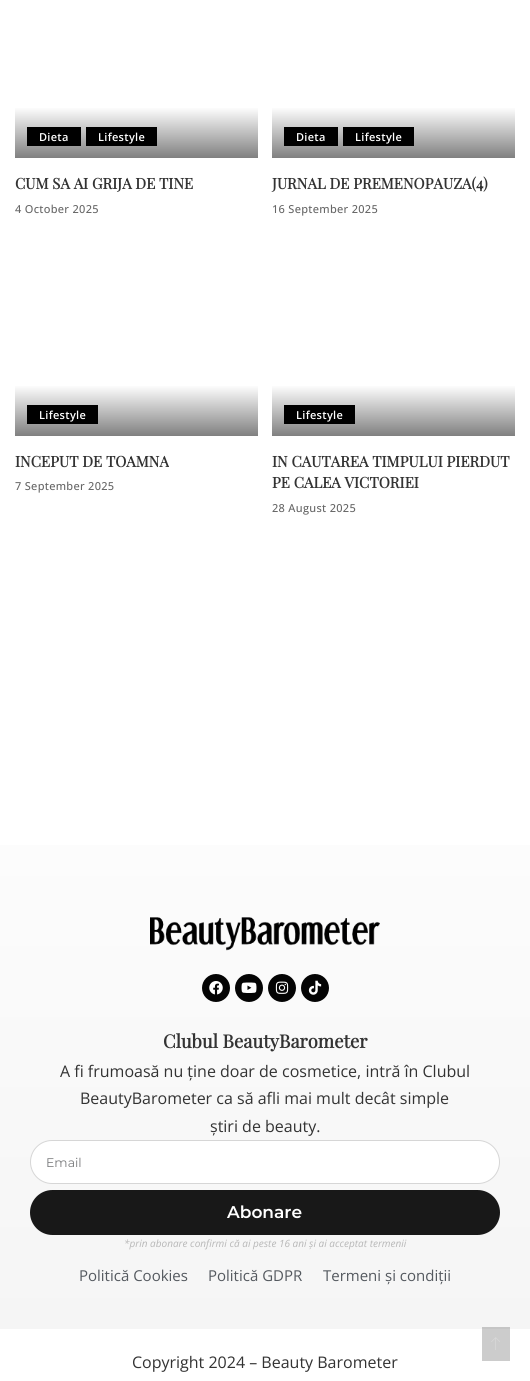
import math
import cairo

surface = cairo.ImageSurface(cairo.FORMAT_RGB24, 530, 1381)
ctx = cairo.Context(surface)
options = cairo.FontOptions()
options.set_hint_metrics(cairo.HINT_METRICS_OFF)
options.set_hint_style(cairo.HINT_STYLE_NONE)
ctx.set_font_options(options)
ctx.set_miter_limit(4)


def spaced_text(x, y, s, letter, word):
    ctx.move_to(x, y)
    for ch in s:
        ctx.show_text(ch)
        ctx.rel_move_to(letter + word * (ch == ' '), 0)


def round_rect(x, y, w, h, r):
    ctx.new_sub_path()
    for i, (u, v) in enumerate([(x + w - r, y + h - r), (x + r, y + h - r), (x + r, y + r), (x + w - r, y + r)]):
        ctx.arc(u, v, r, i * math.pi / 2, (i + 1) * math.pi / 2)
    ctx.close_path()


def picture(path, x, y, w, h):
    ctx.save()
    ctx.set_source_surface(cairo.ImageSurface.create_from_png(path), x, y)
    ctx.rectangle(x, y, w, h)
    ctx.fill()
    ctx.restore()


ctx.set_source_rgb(1, 1, 1)
ctx.paint()
ctx.set_source_rgb(0.8, 0.8, 0.8)
ctx.rectangle(482, 1329, 28, 32)
ctx.fill()
gradient = cairo.LinearGradient(137, 107, 137, 158)
gradient.add_color_stop_rgba(0, 1, 1, 1, 1)
gradient.add_color_stop_rgba(1, 0.502, 0.502, 0.502, 1)
ctx.set_source(gradient)
ctx.rectangle(15, 108, 243, 50)
ctx.fill()
ctx.set_source_rgb(0, 0, 0)
ctx.rectangle(27, 127, 54, 19)
ctx.fill()
ctx.select_font_face("Open Sans SemiBold")
ctx.set_font_size(11)
ctx.set_source_rgb(1, 1, 1)
spaced_text(39, 141, "Dieta", 0.3, 0)
ctx.set_source_rgb(0, 0, 0)
ctx.rectangle(86, 127, 71, 19)
ctx.fill()
ctx.set_source_rgb(1, 1, 1)
spaced_text(98, 141, "Lifestyle", 0.3, 0)
ctx.select_font_face("Playfair Display", cairo.FONT_SLANT_NORMAL, cairo.FONT_WEIGHT_BOLD)
ctx.set_font_size(15)
ctx.set_source_rgb(0.2, 0.2, 0.2)
ctx.move_to(15, 189)
ctx.show_text("CUM SA AI GRIJA DE TINE")
ctx.select_font_face("Open Sans Medium")
ctx.set_font_size(11)
ctx.set_source_rgb(0.4, 0.4, 0.4)
spaced_text(15, 213, "4 October 2025", 0.3, 0)
gradient = cairo.LinearGradient(394, 107, 394, 158)
gradient.add_color_stop_rgba(0, 1, 1, 1, 1)
gradient.add_color_stop_rgba(1, 0.502, 0.502, 0.502, 1)
ctx.set_source(gradient)
ctx.rectangle(272, 108, 243, 50)
ctx.fill()
ctx.set_source_rgb(0, 0, 0)
ctx.rectangle(284, 127, 54, 19)
ctx.fill()
ctx.select_font_face("Open Sans SemiBold")
ctx.set_source_rgb(1, 1, 1)
spaced_text(296, 141, "Dieta", 0.3, 0)
ctx.set_source_rgb(0, 0, 0)
ctx.rectangle(343, 127, 71, 19)
ctx.fill()
ctx.set_source_rgb(1, 1, 1)
spaced_text(355, 141, "Lifestyle", 0.3, 0)
ctx.select_font_face("Playfair Display", cairo.FONT_SLANT_NORMAL, cairo.FONT_WEIGHT_BOLD)
ctx.set_font_size(15)
ctx.set_source_rgb(0.2, 0.2, 0.2)
ctx.move_to(272, 189)
ctx.show_text("JURNAL DE PREMENOPAUZA(4)")
ctx.select_font_face("Open Sans Medium")
ctx.set_font_size(11)
ctx.set_source_rgb(0.4, 0.4, 0.4)
spaced_text(272, 213, "16 September 2025", 0.3, 0)
gradient = cairo.LinearGradient(137, 385, 137, 436)
gradient.add_color_stop_rgba(0, 1, 1, 1, 1)
gradient.add_color_stop_rgba(1, 0.502, 0.502, 0.502, 1)
ctx.set_source(gradient)
ctx.rectangle(15, 386, 243, 50)
ctx.fill()
ctx.set_source_rgb(0, 0, 0)
ctx.rectangle(27, 405, 71, 19)
ctx.fill()
ctx.select_font_face("Open Sans SemiBold")
ctx.set_source_rgb(1, 1, 1)
spaced_text(39, 419, "Lifestyle", 0.3, 0)
ctx.select_font_face("Playfair Display", cairo.FONT_SLANT_NORMAL, cairo.FONT_WEIGHT_BOLD)
ctx.set_font_size(15)
ctx.set_source_rgb(0.2, 0.2, 0.2)
ctx.move_to(15, 467)
ctx.show_text("INCEPUT DE TOAMNA")
ctx.select_font_face("Open Sans Medium")
ctx.set_font_size(11)
ctx.set_source_rgb(0.4, 0.4, 0.4)
spaced_text(15, 490, "7 September 2025", 0.3, 0)
gradient = cairo.LinearGradient(394, 385, 394, 436)
gradient.add_color_stop_rgba(0, 1, 1, 1, 1)
gradient.add_color_stop_rgba(1, 0.502, 0.502, 0.502, 1)
ctx.set_source(gradient)
ctx.rectangle(272, 386, 243, 50)
ctx.fill()
ctx.set_source_rgb(0, 0, 0)
ctx.rectangle(284, 405, 71, 19)
ctx.fill()
ctx.select_font_face("Open Sans SemiBold")
ctx.set_source_rgb(1, 1, 1)
spaced_text(296, 419, "Lifestyle", 0.3, 0)
ctx.select_font_face("Playfair Display", cairo.FONT_SLANT_NORMAL, cairo.FONT_WEIGHT_BOLD)
ctx.set_font_size(15)
ctx.set_source_rgb(0.2, 0.2, 0.2)
ctx.move_to(272, 467)
ctx.show_text("IN CAUTAREA TIMPULUI PIERDUT")
ctx.move_to(272, 488)
ctx.show_text("PE CALEA VICTORIEI")
ctx.select_font_face("Open Sans Medium")
ctx.set_font_size(11)
ctx.set_source_rgb(0.4, 0.4, 0.4)
spaced_text(272, 512, "28 August 2025", 0.3, 0)
gradient = cairo.LinearGradient(265, 845, 265, 1329)
gradient.add_color_stop_rgba(0, 0.988, 0.988, 0.988, 1)
gradient.add_color_stop_rgba(1, 0.961, 0.961, 0.961, 1)
ctx.set_source(gradient)
ctx.rectangle(0, 845, 530, 484)
ctx.fill()
gradient = cairo.LinearGradient(265, 845, 265, 1329)
gradient.add_color_stop_rgba(0, 0.792, 0.792, 0.792, 1)
gradient.add_color_stop_rgba(1, 0.773, 0.773, 0.773, 1)
ctx.set_source(gradient)
ctx.rectangle(482, 1327, 28, 2)
ctx.fill()
picture("img1.png", 150, 917, 230, 34)
ctx.set_source_rgb(0.016, 0.016, 0.016)
ctx.arc(216, 988, 14, 0, 2 * math.pi)
ctx.fill()
picture("img2.png", 209, 981, 14, 14)
ctx.arc(249, 988, 14, 0, 2 * math.pi)
ctx.fill()
picture("img3.png", 241, 982, 16, 11)
ctx.arc(282, 988, 14, 0, 2 * math.pi)
ctx.fill()
picture("img4.png", 275, 981, 14, 13)
ctx.arc(315, 988, 14, 0, 2 * math.pi)
ctx.fill()
picture("img5.png", 308, 980, 14, 15)
ctx.select_font_face("Playfair Display", cairo.FONT_SLANT_NORMAL, cairo.FONT_WEIGHT_BOLD)
ctx.set_font_size(18.4)
ctx.set_source_rgb(0.2, 0.2, 0.2)
ctx.move_to(163, 1048)
ctx.show_text("Clubul BeautyBarometer")
ctx.select_font_face("Open Sans")
ctx.set_font_size(16)
ctx.move_to(60, 1077)
ctx.show_text("A fi frumoasă nu ține doar de cosmetice, intră în Clubul")
ctx.move_to(80, 1104)
ctx.show_text("BeautyBarometer ca să afli mai mult decât simple")
ctx.move_to(210, 1132)
ctx.show_text("știri de beauty.")
ctx.set_source_rgb(1, 1, 1)
round_rect(30.5, 1140.5, 469, 43, 21.5)
ctx.fill_preserve()
ctx.set_source_rgb(0.839, 0.839, 0.839)
ctx.set_line_width(1)
ctx.stroke()
ctx.select_font_face("Montserrat")
ctx.set_font_size(12.5)
ctx.set_source_rgb(0.475, 0.478, 0.486)
ctx.move_to(46, 1167)
ctx.show_text("Email")
ctx.set_source_rgb(0.094, 0.094, 0.094)
round_rect(30, 1190, 470, 45, 22.5)
ctx.fill()
ctx.select_font_face("Montserrat SemiBold")
ctx.set_font_size(17)
ctx.set_source_rgb(1, 1, 1)
ctx.move_to(227, 1218)
ctx.show_text("Abonare")
ctx.select_font_face("Open Sans", cairo.FONT_SLANT_ITALIC)
ctx.set_font_size(10)
ctx.set_source_rgb(0.718, 0.718, 0.718)
ctx.move_to(124, 1247)
ctx.show_text("*prin abonare confirmi că ai peste 16 ani și ai acceptat termenii")
ctx.select_font_face("Open Sans")
ctx.set_font_size(15)
ctx.set_source_rgb(0.329, 0.349, 0.373)
ctx.move_to(79, 1281)
ctx.show_text("Politică Cookies")
ctx.move_to(208, 1281)
ctx.show_text("Politică GDPR")
ctx.move_to(323, 1281)
ctx.show_text("Termeni și condiții")
ctx.set_font_size(16)
ctx.set_source_rgb(0.2, 0.2, 0.2)
ctx.move_to(132, 1368)
ctx.show_text("Copyright 2024 – Beauty Barometer")
picture("img6.png", 491, 1337, 9, 13)
surface.write_to_png("page.png")
